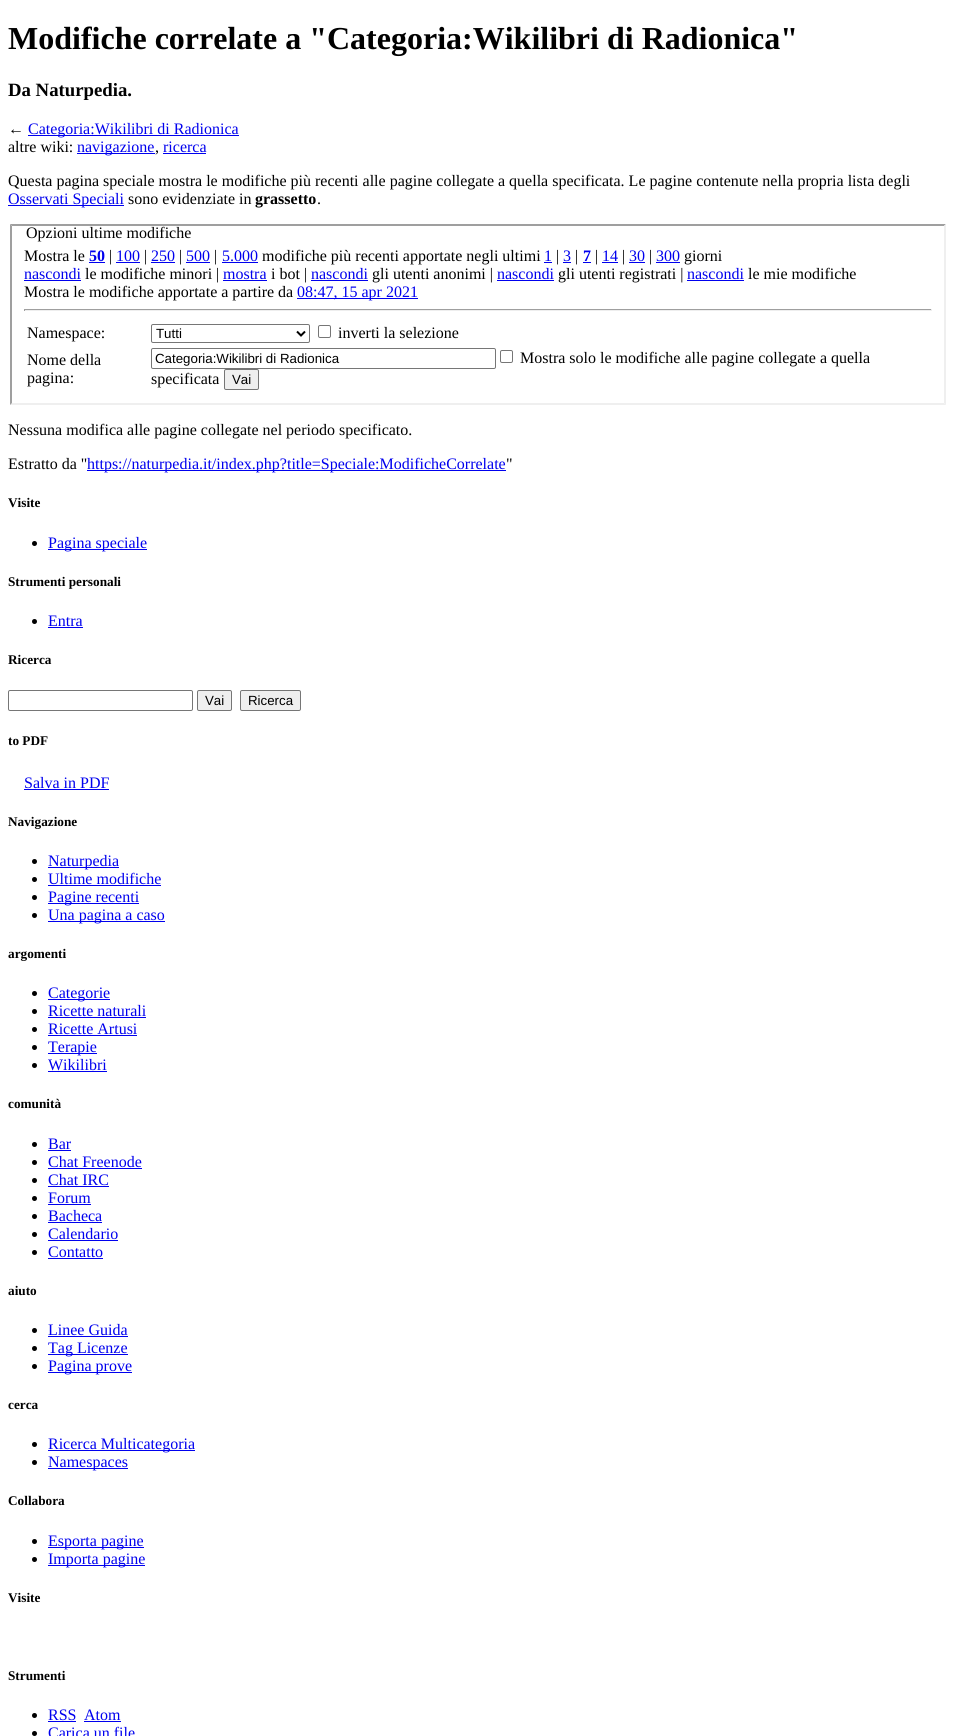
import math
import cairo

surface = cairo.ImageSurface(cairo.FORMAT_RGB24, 956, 1736)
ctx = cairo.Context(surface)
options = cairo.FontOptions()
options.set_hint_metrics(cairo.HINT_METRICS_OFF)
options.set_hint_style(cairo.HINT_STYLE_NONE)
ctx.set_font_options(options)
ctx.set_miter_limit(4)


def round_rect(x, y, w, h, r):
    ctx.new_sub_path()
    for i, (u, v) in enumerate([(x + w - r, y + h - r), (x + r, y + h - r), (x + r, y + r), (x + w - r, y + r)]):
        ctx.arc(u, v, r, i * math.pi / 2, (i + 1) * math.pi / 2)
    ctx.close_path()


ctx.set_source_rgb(1, 1, 1)
ctx.paint()
ctx.select_font_face("Liberation Serif", cairo.FONT_SLANT_NORMAL, cairo.FONT_WEIGHT_BOLD)
ctx.set_font_size(32)
ctx.set_source_rgb(0, 0, 0)
ctx.move_to(8, 49)
ctx.show_text("Modifiche correlate a \"Categoria:Wikilibri di Radionica\"")
ctx.set_font_size(18.75)
ctx.move_to(8, 96)
ctx.show_text("Da Naturpedia.")
ctx.select_font_face("Liberation Serif")
ctx.set_font_size(16)
ctx.move_to(8, 134)
ctx.show_text("←")
ctx.set_source_rgb(0, 0, 0.933)
ctx.rectangle(28, 135, 211, 1)
ctx.fill()
ctx.move_to(28, 134)
ctx.show_text("Categoria:Wikilibri di Radionica")
ctx.set_source_rgb(0, 0, 0)
ctx.move_to(8, 152)
ctx.show_text("altre wiki:")
ctx.set_source_rgb(0, 0, 0.933)
ctx.rectangle(77, 153, 78, 1)
ctx.fill()
ctx.move_to(77, 152)
ctx.show_text("navigazione")
ctx.set_source_rgb(0, 0, 0)
ctx.move_to(155, 152)
ctx.show_text(",")
ctx.set_source_rgb(0, 0, 0.933)
ctx.move_to(163, 152)
ctx.show_text("ricerca")
ctx.rectangle(163, 153, 43, 1)
ctx.fill()
ctx.set_source_rgb(0, 0, 0)
ctx.move_to(8, 186)
ctx.show_text("Questa pagina speciale mostra le modifiche più recenti alle pagine collegate a quella specificata. Le pagine contenute nella propria lista degli")
ctx.set_source_rgb(0, 0, 0.933)
ctx.rectangle(8, 205, 116, 1)
ctx.fill()
ctx.move_to(8, 204)
ctx.show_text("Osservati Speciali")
ctx.set_source_rgb(0, 0, 0)
ctx.move_to(128, 204)
ctx.show_text("sono evidenziate in")
ctx.select_font_face("Liberation Serif", cairo.FONT_SLANT_NORMAL, cairo.FONT_WEIGHT_BOLD)
ctx.move_to(255, 204)
ctx.show_text("grassetto")
ctx.select_font_face("Liberation Serif")
ctx.move_to(317, 204)
ctx.show_text(".")
ctx.set_source_rgb(0.624, 0.624, 0.624)
ctx.new_path()
ctx.move_to(10, 224)
ctx.line_to(946, 224)
ctx.line_to(944, 226)
ctx.line_to(12, 226)
ctx.close_path()
ctx.fill()
ctx.set_source_rgb(0.937, 0.937, 0.937)
ctx.new_path()
ctx.move_to(946, 224)
ctx.line_to(946, 405)
ctx.line_to(944, 403)
ctx.line_to(944, 226)
ctx.close_path()
ctx.fill()
ctx.new_path()
ctx.move_to(946, 405)
ctx.line_to(10, 405)
ctx.line_to(12, 403)
ctx.line_to(944, 403)
ctx.close_path()
ctx.fill()
ctx.set_source_rgb(0.624, 0.624, 0.624)
ctx.new_path()
ctx.move_to(10, 405)
ctx.line_to(10, 224)
ctx.line_to(12, 226)
ctx.line_to(12, 403)
ctx.close_path()
ctx.fill()
ctx.set_source_rgb(0, 0, 0)
ctx.move_to(26, 238)
ctx.show_text("Opzioni ultime modifiche")
ctx.move_to(24, 261)
ctx.show_text("Mostra le")
ctx.select_font_face("Liberation Serif", cairo.FONT_SLANT_NORMAL, cairo.FONT_WEIGHT_BOLD)
ctx.set_source_rgb(0, 0, 0.933)
ctx.move_to(89, 261)
ctx.show_text("50")
ctx.rectangle(89, 262, 16, 1)
ctx.fill()
ctx.select_font_face("Liberation Serif")
ctx.set_source_rgb(0, 0, 0)
ctx.move_to(109, 261)
ctx.show_text("|")
ctx.set_source_rgb(0, 0, 0.933)
ctx.move_to(116, 261)
ctx.show_text("100")
ctx.rectangle(116, 262, 24, 1)
ctx.fill()
ctx.set_source_rgb(0, 0, 0)
ctx.move_to(144, 261)
ctx.show_text("|")
ctx.set_source_rgb(0, 0, 0.933)
ctx.move_to(151, 261)
ctx.show_text("250")
ctx.rectangle(151, 262, 24, 1)
ctx.fill()
ctx.set_source_rgb(0, 0, 0)
ctx.move_to(179, 261)
ctx.show_text("|")
ctx.set_source_rgb(0, 0, 0.933)
ctx.move_to(186, 261)
ctx.show_text("500")
ctx.rectangle(186, 262, 24, 1)
ctx.fill()
ctx.set_source_rgb(0, 0, 0)
ctx.move_to(214, 261)
ctx.show_text("|")
ctx.set_source_rgb(0, 0, 0.933)
ctx.move_to(222, 261)
ctx.show_text("5.000")
ctx.rectangle(222, 262, 36, 1)
ctx.fill()
ctx.set_source_rgb(0, 0, 0)
ctx.move_to(262, 261)
ctx.show_text("modifiche più recenti apportate negli ultimi")
ctx.set_source_rgb(0, 0, 0.933)
ctx.move_to(544, 261)
ctx.show_text("1")
ctx.rectangle(544, 262, 8, 1)
ctx.fill()
ctx.set_source_rgb(0, 0, 0)
ctx.move_to(556, 261)
ctx.show_text("|")
ctx.set_source_rgb(0, 0, 0.933)
ctx.move_to(563, 261)
ctx.show_text("3")
ctx.rectangle(563, 262, 8, 1)
ctx.fill()
ctx.set_source_rgb(0, 0, 0)
ctx.move_to(575, 261)
ctx.show_text("|")
ctx.select_font_face("Liberation Serif", cairo.FONT_SLANT_NORMAL, cairo.FONT_WEIGHT_BOLD)
ctx.set_source_rgb(0, 0, 0.933)
ctx.move_to(583, 261)
ctx.show_text("7")
ctx.rectangle(583, 262, 8, 1)
ctx.fill()
ctx.select_font_face("Liberation Serif")
ctx.set_source_rgb(0, 0, 0)
ctx.move_to(595, 261)
ctx.show_text("|")
ctx.set_source_rgb(0, 0, 0.933)
ctx.move_to(602, 261)
ctx.show_text("14")
ctx.rectangle(602, 262, 16, 1)
ctx.fill()
ctx.set_source_rgb(0, 0, 0)
ctx.move_to(622, 261)
ctx.show_text("|")
ctx.set_source_rgb(0, 0, 0.933)
ctx.move_to(629, 261)
ctx.show_text("30")
ctx.rectangle(629, 262, 16, 1)
ctx.fill()
ctx.set_source_rgb(0, 0, 0)
ctx.move_to(649, 261)
ctx.show_text("|")
ctx.set_source_rgb(0, 0, 0.933)
ctx.move_to(656, 261)
ctx.show_text("300")
ctx.rectangle(656, 262, 24, 1)
ctx.fill()
ctx.set_source_rgb(0, 0, 0)
ctx.move_to(684, 261)
ctx.show_text("giorni")
ctx.set_source_rgb(0, 0, 0.933)
ctx.move_to(24, 279)
ctx.show_text("nascondi")
ctx.rectangle(24, 280, 57, 1)
ctx.fill()
ctx.set_source_rgb(0, 0, 0)
ctx.move_to(85, 279)
ctx.show_text("le modifiche minori |")
ctx.set_source_rgb(0, 0, 0.933)
ctx.move_to(223, 279)
ctx.show_text("mostra")
ctx.rectangle(223, 280, 44, 1)
ctx.fill()
ctx.set_source_rgb(0, 0, 0)
ctx.move_to(271, 279)
ctx.show_text("i bot |")
ctx.set_source_rgb(0, 0, 0.933)
ctx.move_to(311, 279)
ctx.show_text("nascondi")
ctx.rectangle(311, 280, 57, 1)
ctx.fill()
ctx.set_source_rgb(0, 0, 0)
ctx.move_to(372, 279)
ctx.show_text("gli utenti anonimi |")
ctx.set_source_rgb(0, 0, 0.933)
ctx.move_to(497, 279)
ctx.show_text("nascondi")
ctx.rectangle(497, 280, 57, 1)
ctx.fill()
ctx.set_source_rgb(0, 0, 0)
ctx.move_to(558, 279)
ctx.show_text("gli utenti registrati |")
ctx.set_source_rgb(0, 0, 0.933)
ctx.move_to(687, 279)
ctx.show_text("nascondi")
ctx.rectangle(687, 280, 57, 1)
ctx.fill()
ctx.set_source_rgb(0, 0, 0)
ctx.move_to(748, 279)
ctx.show_text("le mie modifiche")
ctx.move_to(24, 297)
ctx.show_text("Mostra le modifiche apportate a partire da")
ctx.set_source_rgb(0, 0, 0.933)
ctx.rectangle(297, 298, 121, 1)
ctx.fill()
ctx.move_to(297, 297)
ctx.show_text("08:47, 15 apr 2021")
ctx.set_source_rgb(0.624, 0.624, 0.624)
ctx.rectangle(24, 309, 908, 1)
ctx.fill()
ctx.set_source_rgb(0.933, 0.933, 0.933)
ctx.rectangle(931, 309, 1, 2)
ctx.fill()
ctx.rectangle(24, 310, 908, 1)
ctx.fill()
ctx.set_source_rgb(0.624, 0.624, 0.624)
ctx.rectangle(24, 309, 1, 2)
ctx.fill()
ctx.set_source_rgb(0, 0, 0)
ctx.move_to(27, 338)
ctx.show_text("Namespace:")
round_rect(151.5, 324.5, 158, 18, 1.5)
ctx.set_source_rgb(0.463, 0.463, 0.463)
ctx.set_line_width(1)
ctx.stroke()
ctx.new_path()
ctx.move_to(297, 331.5)
ctx.line_to(301, 335.5)
ctx.line_to(305, 331.5)
ctx.set_source_rgb(0, 0, 0)
ctx.set_line_width(2)
ctx.stroke()
ctx.select_font_face("Liberation Sans")
ctx.set_font_size(13.3)
ctx.move_to(156, 338)
ctx.show_text("Tutti")
round_rect(318.5, 325.5, 12, 12, 1.5)
ctx.set_source_rgb(0.463, 0.463, 0.463)
ctx.set_line_width(1)
ctx.stroke()
ctx.select_font_face("Liberation Serif")
ctx.set_font_size(16)
ctx.set_source_rgb(0, 0, 0)
ctx.move_to(338, 338)
ctx.show_text("inverti la selezione")
ctx.move_to(27, 365)
ctx.show_text("Nome della")
ctx.move_to(27, 383)
ctx.show_text("pagina:")
round_rect(151.5, 348.5, 344, 20, 1.5)
ctx.set_source_rgb(0.463, 0.463, 0.463)
ctx.stroke()
ctx.select_font_face("Liberation Sans")
ctx.set_font_size(13.3)
ctx.set_source_rgb(0, 0, 0)
ctx.move_to(155, 363)
ctx.show_text("Categoria:Wikilibri di Radionica")
round_rect(500.5, 350.5, 12, 12, 1.5)
ctx.set_source_rgb(0.463, 0.463, 0.463)
ctx.stroke()
ctx.select_font_face("Liberation Serif")
ctx.set_font_size(16)
ctx.set_source_rgb(0, 0, 0)
ctx.move_to(520, 363)
ctx.show_text("Mostra solo le modifiche alle pagine collegate a quella")
ctx.move_to(151, 384)
ctx.show_text("specificata")
ctx.set_source_rgb(0.937, 0.937, 0.937)
round_rect(224.5, 369.5, 34, 20, 1.5)
ctx.fill_preserve()
ctx.set_source_rgb(0.463, 0.463, 0.463)
ctx.stroke()
ctx.select_font_face("Liberation Sans")
ctx.set_font_size(13.3)
ctx.set_source_rgb(0, 0, 0)
ctx.move_to(232, 384)
ctx.show_text("Vai")
ctx.select_font_face("Liberation Serif")
ctx.set_font_size(16)
ctx.move_to(8, 435)
ctx.show_text("Nessuna modifica alle pagine collegate nel periodo specificato.")
ctx.move_to(8, 469)
ctx.show_text("Estratto da \"")
ctx.set_source_rgb(0, 0, 0.933)
ctx.rectangle(87, 470, 419, 1)
ctx.fill()
ctx.move_to(87, 469)
ctx.show_text("https://naturpedia.it/index.php?title=Speciale:ModificheCorrelate")
ctx.set_source_rgb(0, 0, 0)
ctx.move_to(506, 469)
ctx.show_text("\"")
ctx.select_font_face("Liberation Serif", cairo.FONT_SLANT_NORMAL, cairo.FONT_WEIGHT_BOLD)
ctx.set_font_size(13.25)
ctx.move_to(8, 507)
ctx.show_text("Visite")
ctx.new_path()
ctx.arc(34.5, 543.5, 2.5, 0, 2 * math.pi)
ctx.fill()
ctx.set_source_rgb(0, 0, 0.933)
ctx.rectangle(48, 549, 99, 1)
ctx.fill()
ctx.select_font_face("Liberation Serif")
ctx.set_font_size(16)
ctx.move_to(48, 548)
ctx.show_text("Pagina speciale")
ctx.select_font_face("Liberation Serif", cairo.FONT_SLANT_NORMAL, cairo.FONT_WEIGHT_BOLD)
ctx.set_font_size(13.25)
ctx.set_source_rgb(0, 0, 0)
ctx.move_to(8, 586)
ctx.show_text("Strumenti personali")
ctx.new_path()
ctx.arc(34.5, 621.5, 2.5, 0, 2 * math.pi)
ctx.fill()
ctx.select_font_face("Liberation Serif")
ctx.set_font_size(16)
ctx.set_source_rgb(0, 0, 0.933)
ctx.move_to(48, 626)
ctx.show_text("Entra")
ctx.rectangle(48, 627, 35, 1)
ctx.fill()
ctx.select_font_face("Liberation Serif", cairo.FONT_SLANT_NORMAL, cairo.FONT_WEIGHT_BOLD)
ctx.set_font_size(13.25)
ctx.set_source_rgb(0, 0, 0)
ctx.move_to(8, 664)
ctx.show_text("Ricerca")
round_rect(8.5, 690.5, 184, 20, 1.5)
ctx.set_source_rgb(0.463, 0.463, 0.463)
ctx.stroke()
ctx.set_source_rgb(0.937, 0.937, 0.937)
round_rect(197.5, 690.5, 34, 20, 1.5)
ctx.fill_preserve()
ctx.set_source_rgb(0.463, 0.463, 0.463)
ctx.stroke()
ctx.select_font_face("Liberation Sans")
ctx.set_font_size(13.3)
ctx.set_source_rgb(0, 0, 0)
ctx.move_to(205, 705)
ctx.show_text("Vai")
ctx.set_source_rgb(0.937, 0.937, 0.937)
round_rect(240.5, 690.5, 60, 20, 1.5)
ctx.fill_preserve()
ctx.set_source_rgb(0.463, 0.463, 0.463)
ctx.stroke()
ctx.set_source_rgb(0, 0, 0)
ctx.move_to(248, 705)
ctx.show_text("Ricerca")
ctx.select_font_face("Liberation Serif", cairo.FONT_SLANT_NORMAL, cairo.FONT_WEIGHT_BOLD)
ctx.set_font_size(13.25)
ctx.move_to(8, 745)
ctx.show_text("to PDF")
ctx.select_font_face("Liberation Serif")
ctx.set_font_size(16)
ctx.set_source_rgb(0, 0, 0.933)
ctx.move_to(24, 788)
ctx.show_text("Salva in PDF")
ctx.rectangle(24, 789, 85, 1)
ctx.fill()
ctx.select_font_face("Liberation Serif", cairo.FONT_SLANT_NORMAL, cairo.FONT_WEIGHT_BOLD)
ctx.set_font_size(13.25)
ctx.set_source_rgb(0, 0, 0)
ctx.move_to(8, 826)
ctx.show_text("Navigazione")
ctx.new_path()
ctx.arc(34.5, 861.5, 2.5, 0, 2 * math.pi)
ctx.fill()
ctx.set_source_rgb(0, 0, 0.933)
ctx.rectangle(48, 867, 71, 1)
ctx.fill()
ctx.select_font_face("Liberation Serif")
ctx.set_font_size(16)
ctx.move_to(48, 866)
ctx.show_text("Naturpedia")
ctx.set_source_rgb(0, 0, 0)
ctx.new_path()
ctx.arc(34.5, 879.5, 2.5, 0, 2 * math.pi)
ctx.fill()
ctx.set_source_rgb(0, 0, 0.933)
ctx.move_to(48, 884)
ctx.show_text("Ultime modifiche")
ctx.rectangle(48, 885, 113, 1)
ctx.fill()
ctx.set_source_rgb(0, 0, 0)
ctx.arc(34.5, 897.5, 2.5, 0, 2 * math.pi)
ctx.fill()
ctx.set_source_rgb(0, 0, 0.933)
ctx.rectangle(48, 903, 91, 1)
ctx.fill()
ctx.move_to(48, 902)
ctx.show_text("Pagine recenti")
ctx.set_source_rgb(0, 0, 0)
ctx.new_path()
ctx.arc(34.5, 915.5, 2.5, 0, 2 * math.pi)
ctx.fill()
ctx.set_source_rgb(0, 0, 0.933)
ctx.rectangle(48, 921, 117, 1)
ctx.fill()
ctx.move_to(48, 920)
ctx.show_text("Una pagina a caso")
ctx.select_font_face("Liberation Serif", cairo.FONT_SLANT_NORMAL, cairo.FONT_WEIGHT_BOLD)
ctx.set_font_size(13.25)
ctx.set_source_rgb(0, 0, 0)
ctx.move_to(8, 958)
ctx.show_text("argomenti")
ctx.new_path()
ctx.arc(34.5, 993.5, 2.5, 0, 2 * math.pi)
ctx.fill()
ctx.set_source_rgb(0, 0, 0.933)
ctx.rectangle(48, 999, 62, 1)
ctx.fill()
ctx.select_font_face("Liberation Serif")
ctx.set_font_size(16)
ctx.move_to(48, 998)
ctx.show_text("Categorie")
ctx.set_source_rgb(0, 0, 0)
ctx.new_path()
ctx.arc(34.5, 1011.5, 2.5, 0, 2 * math.pi)
ctx.fill()
ctx.set_source_rgb(0, 0, 0.933)
ctx.move_to(48, 1016)
ctx.show_text("Ricette naturali")
ctx.rectangle(48, 1017, 98, 1)
ctx.fill()
ctx.set_source_rgb(0, 0, 0)
ctx.arc(34.5, 1029.5, 2.5, 0, 2 * math.pi)
ctx.fill()
ctx.set_source_rgb(0, 0, 0.933)
ctx.move_to(48, 1034)
ctx.show_text("Ricette Artusi")
ctx.rectangle(48, 1035, 89, 1)
ctx.fill()
ctx.set_source_rgb(0, 0, 0)
ctx.arc(34.5, 1047.5, 2.5, 0, 2 * math.pi)
ctx.fill()
ctx.set_source_rgb(0, 0, 0.933)
ctx.rectangle(48, 1053, 49, 1)
ctx.fill()
ctx.move_to(48, 1052)
ctx.show_text("Terapie")
ctx.set_source_rgb(0, 0, 0)
ctx.new_path()
ctx.arc(34.5, 1065.5, 2.5, 0, 2 * math.pi)
ctx.fill()
ctx.set_source_rgb(0, 0, 0.933)
ctx.move_to(48, 1070)
ctx.show_text("Wikilibri")
ctx.rectangle(48, 1071, 59, 1)
ctx.fill()
ctx.select_font_face("Liberation Serif", cairo.FONT_SLANT_NORMAL, cairo.FONT_WEIGHT_BOLD)
ctx.set_font_size(13.25)
ctx.set_source_rgb(0, 0, 0)
ctx.move_to(8, 1108)
ctx.show_text("comunità")
ctx.new_path()
ctx.arc(34.5, 1144.5, 2.5, 0, 2 * math.pi)
ctx.fill()
ctx.select_font_face("Liberation Serif")
ctx.set_font_size(16)
ctx.set_source_rgb(0, 0, 0.933)
ctx.move_to(48, 1149)
ctx.show_text("Bar")
ctx.rectangle(48, 1150, 23, 1)
ctx.fill()
ctx.set_source_rgb(0, 0, 0)
ctx.arc(34.5, 1162.5, 2.5, 0, 2 * math.pi)
ctx.fill()
ctx.set_source_rgb(0, 0, 0.933)
ctx.move_to(48, 1167)
ctx.show_text("Chat Freenode")
ctx.rectangle(48, 1168, 94, 1)
ctx.fill()
ctx.set_source_rgb(0, 0, 0)
ctx.arc(34.5, 1180.5, 2.5, 0, 2 * math.pi)
ctx.fill()
ctx.set_source_rgb(0, 0, 0.933)
ctx.move_to(48, 1185)
ctx.show_text("Chat IRC")
ctx.rectangle(48, 1186, 61, 1)
ctx.fill()
ctx.set_source_rgb(0, 0, 0)
ctx.arc(34.5, 1198.5, 2.5, 0, 2 * math.pi)
ctx.fill()
ctx.set_source_rgb(0, 0, 0.933)
ctx.move_to(48, 1203)
ctx.show_text("Forum")
ctx.rectangle(48, 1204, 43, 1)
ctx.fill()
ctx.set_source_rgb(0, 0, 0)
ctx.arc(34.5, 1216.5, 2.5, 0, 2 * math.pi)
ctx.fill()
ctx.set_source_rgb(0, 0, 0.933)
ctx.move_to(48, 1221)
ctx.show_text("Bacheca")
ctx.rectangle(48, 1222, 54, 1)
ctx.fill()
ctx.set_source_rgb(0, 0, 0)
ctx.arc(34.5, 1234.5, 2.5, 0, 2 * math.pi)
ctx.fill()
ctx.set_source_rgb(0, 0, 0.933)
ctx.move_to(48, 1239)
ctx.show_text("Calendario")
ctx.rectangle(48, 1240, 70, 1)
ctx.fill()
ctx.set_source_rgb(0, 0, 0)
ctx.arc(34.5, 1252.5, 2.5, 0, 2 * math.pi)
ctx.fill()
ctx.set_source_rgb(0, 0, 0.933)
ctx.move_to(48, 1257)
ctx.show_text("Contatto")
ctx.rectangle(48, 1258, 55, 1)
ctx.fill()
ctx.select_font_face("Liberation Serif", cairo.FONT_SLANT_NORMAL, cairo.FONT_WEIGHT_BOLD)
ctx.set_font_size(13.25)
ctx.set_source_rgb(0, 0, 0)
ctx.move_to(8, 1295)
ctx.show_text("aiuto")
ctx.new_path()
ctx.arc(34.5, 1330.5, 2.5, 0, 2 * math.pi)
ctx.fill()
ctx.select_font_face("Liberation Serif")
ctx.set_font_size(16)
ctx.set_source_rgb(0, 0, 0.933)
ctx.move_to(48, 1335)
ctx.show_text("Linee Guida")
ctx.rectangle(48, 1336, 80, 1)
ctx.fill()
ctx.set_source_rgb(0, 0, 0)
ctx.arc(34.5, 1348.5, 2.5, 0, 2 * math.pi)
ctx.fill()
ctx.set_source_rgb(0, 0, 0.933)
ctx.rectangle(48, 1354, 80, 1)
ctx.fill()
ctx.move_to(48, 1353)
ctx.show_text("Tag Licenze")
ctx.set_source_rgb(0, 0, 0)
ctx.new_path()
ctx.arc(34.5, 1366.5, 2.5, 0, 2 * math.pi)
ctx.fill()
ctx.set_source_rgb(0, 0, 0.933)
ctx.rectangle(48, 1372, 84, 1)
ctx.fill()
ctx.move_to(48, 1371)
ctx.show_text("Pagina prove")
ctx.select_font_face("Liberation Serif", cairo.FONT_SLANT_NORMAL, cairo.FONT_WEIGHT_BOLD)
ctx.set_font_size(13.25)
ctx.set_source_rgb(0, 0, 0)
ctx.move_to(8, 1409)
ctx.show_text("cerca")
ctx.new_path()
ctx.arc(34.5, 1444.5, 2.5, 0, 2 * math.pi)
ctx.fill()
ctx.set_source_rgb(0, 0, 0.933)
ctx.rectangle(48, 1450, 147, 1)
ctx.fill()
ctx.select_font_face("Liberation Serif")
ctx.set_font_size(16)
ctx.move_to(48, 1449)
ctx.show_text("Ricerca Multicategoria")
ctx.set_source_rgb(0, 0, 0)
ctx.new_path()
ctx.arc(34.5, 1462.5, 2.5, 0, 2 * math.pi)
ctx.fill()
ctx.set_source_rgb(0, 0, 0.933)
ctx.rectangle(48, 1468, 80, 1)
ctx.fill()
ctx.move_to(48, 1467)
ctx.show_text("Namespaces")
ctx.select_font_face("Liberation Serif", cairo.FONT_SLANT_NORMAL, cairo.FONT_WEIGHT_BOLD)
ctx.set_font_size(13.25)
ctx.set_source_rgb(0, 0, 0)
ctx.move_to(8, 1505)
ctx.show_text("Collabora")
ctx.new_path()
ctx.arc(34.5, 1541.5, 2.5, 0, 2 * math.pi)
ctx.fill()
ctx.set_source_rgb(0, 0, 0.933)
ctx.rectangle(48, 1547, 96, 1)
ctx.fill()
ctx.select_font_face("Liberation Serif")
ctx.set_font_size(16)
ctx.move_to(48, 1546)
ctx.show_text("Esporta pagine")
ctx.set_source_rgb(0, 0, 0)
ctx.new_path()
ctx.arc(34.5, 1559.5, 2.5, 0, 2 * math.pi)
ctx.fill()
ctx.set_source_rgb(0, 0, 0.933)
ctx.rectangle(48, 1565, 97, 1)
ctx.fill()
ctx.move_to(48, 1564)
ctx.show_text("Importa pagine")
ctx.select_font_face("Liberation Serif", cairo.FONT_SLANT_NORMAL, cairo.FONT_WEIGHT_BOLD)
ctx.set_font_size(13.25)
ctx.set_source_rgb(0, 0, 0)
ctx.move_to(8, 1602)
ctx.show_text("Visite")
ctx.move_to(8, 1680)
ctx.show_text("Strumenti")
ctx.new_path()
ctx.arc(34.5, 1715.5, 2.5, 0, 2 * math.pi)
ctx.fill()
ctx.select_font_face("Liberation Serif")
ctx.set_font_size(16)
ctx.set_source_rgb(0, 0, 0.933)
ctx.move_to(48, 1720)
ctx.show_text("RSS")
ctx.rectangle(48, 1721, 28, 1)
ctx.fill()
ctx.move_to(84, 1720)
ctx.show_text("Atom")
ctx.rectangle(84, 1721, 37, 1)
ctx.fill()
ctx.set_source_rgb(0, 0, 0)
ctx.arc(34.5, 1733.5, 2.5, 0, 2 * math.pi)
ctx.fill()
ctx.set_source_rgb(0, 0, 0.933)
ctx.move_to(48, 1738)
ctx.show_text("Carica un file")
surface.write_to_png("page.png")
